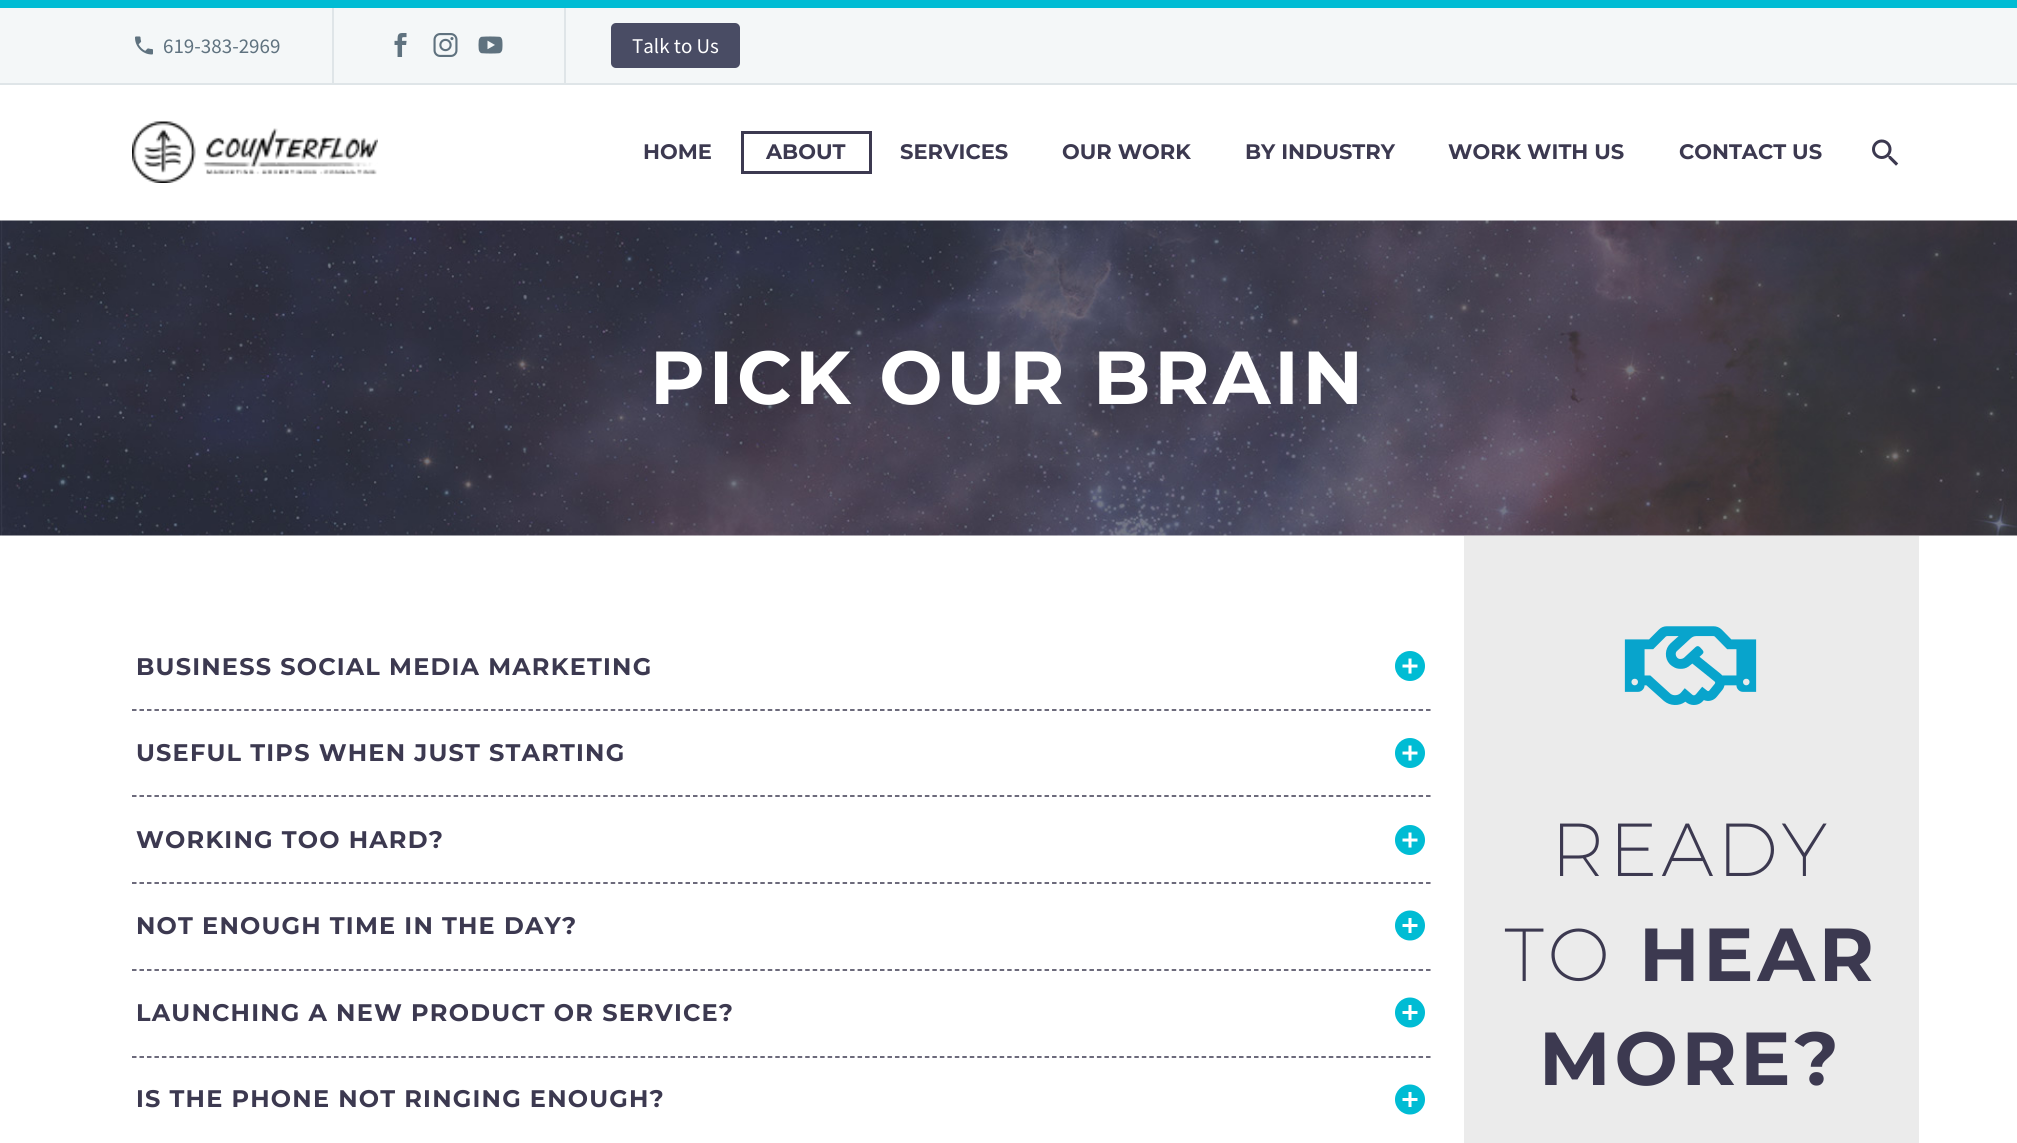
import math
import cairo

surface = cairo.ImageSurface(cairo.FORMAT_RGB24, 2017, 1143)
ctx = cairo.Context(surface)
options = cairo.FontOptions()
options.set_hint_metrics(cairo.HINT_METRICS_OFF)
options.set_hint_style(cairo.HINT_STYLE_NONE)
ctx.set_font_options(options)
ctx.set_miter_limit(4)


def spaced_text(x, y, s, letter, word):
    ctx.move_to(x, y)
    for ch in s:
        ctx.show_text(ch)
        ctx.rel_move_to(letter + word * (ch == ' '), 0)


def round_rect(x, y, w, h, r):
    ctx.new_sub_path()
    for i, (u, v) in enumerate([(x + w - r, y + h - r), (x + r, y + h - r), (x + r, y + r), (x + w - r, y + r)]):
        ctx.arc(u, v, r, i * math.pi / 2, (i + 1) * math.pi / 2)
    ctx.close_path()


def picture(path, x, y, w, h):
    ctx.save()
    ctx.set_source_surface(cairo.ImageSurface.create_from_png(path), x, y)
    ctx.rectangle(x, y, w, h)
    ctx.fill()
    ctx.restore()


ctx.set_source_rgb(1, 1, 1)
ctx.paint()
ctx.set_source_rgb(0.957, 0.965, 0.969)
ctx.rectangle(0, 8, 2017, 75)
ctx.fill()
ctx.set_source_rgb(0, 0.737, 0.831)
ctx.rectangle(0, 0, 2017, 8)
ctx.fill()
ctx.set_source_rgb(0.875, 0.898, 0.91)
ctx.rectangle(0, 83, 2017, 2)
ctx.fill()
picture("img1.png", 135, 36, 18, 19)
ctx.select_font_face("Source Sans Pro")
ctx.set_font_size(21)
ctx.set_source_rgb(0.373, 0.447, 0.498)
ctx.move_to(163, 53)
ctx.show_text("619-383-2969")
ctx.set_source_rgb(0.875, 0.898, 0.91)
ctx.rectangle(332, 8, 2, 75)
ctx.fill()
picture("img2.png", 394, 33, 13, 24)
picture("img3.png", 433, 33, 25, 24)
picture("img4.png", 478, 36, 25, 18)
ctx.rectangle(564, 8, 2, 75)
ctx.fill()
ctx.set_source_rgb(0.286, 0.298, 0.392)
round_rect(611, 23, 129, 45, 5)
ctx.fill()
ctx.set_source_rgb(1, 1, 1)
ctx.move_to(632, 53)
ctx.show_text("Talk to Us")
picture("img5.png", 132, 121, 246, 62)
ctx.select_font_face("Montserrat", cairo.FONT_SLANT_NORMAL, cairo.FONT_WEIGHT_BOLD)
ctx.set_source_rgb(0.235, 0.224, 0.314)
ctx.move_to(643, 159)
ctx.show_text("HOME")
ctx.rectangle(742.5, 132.5, 128, 40)
ctx.set_line_width(3)
ctx.stroke()
ctx.move_to(766, 159)
ctx.show_text("ABOUT")
ctx.move_to(900, 159)
ctx.show_text("SERVICES")
ctx.move_to(1062, 159)
ctx.show_text("OUR WORK")
ctx.move_to(1245, 159)
ctx.show_text("BY INDUSTRY")
ctx.move_to(1448, 159)
ctx.show_text("WORK WITH US")
ctx.move_to(1679, 159)
ctx.show_text("CONTACT US")
picture("img6.png", 1872, 139, 27, 27)
picture("img7.png", 0, 220, 2017, 316)
ctx.set_font_size(75)
ctx.set_source_rgb(1, 1, 1)
spaced_text(650, 404, "PICK OUR BRAIN", 3.75, 0)
ctx.set_font_size(24)
ctx.set_source_rgb(0.235, 0.224, 0.314)
spaced_text(136, 675, "BUSINESS SOCIAL MEDIA MARKETING", 1.2, 0)
picture("img8.png", 1395, 651, 30, 30)
ctx.new_path()
ctx.move_to(132, 710)
ctx.line_to(1432.5, 710)
ctx.set_line_width(1.5)
ctx.set_dash([4.5, 2.98])
ctx.stroke()
spaced_text(136, 761, "USEFUL TIPS WHEN JUST STARTING", 1.2, 0)
picture("img8.png", 1395, 738, 30, 30)
ctx.new_path()
ctx.move_to(132, 796)
ctx.line_to(1432.5, 796)
ctx.stroke()
spaced_text(136, 848, "WORKING TOO HARD?", 1.2, 0)
picture("img8.png", 1395, 825, 30, 30)
ctx.new_path()
ctx.move_to(132, 883)
ctx.line_to(1432.5, 883)
ctx.stroke()
spaced_text(136, 934, "NOT ENOUGH TIME IN THE DAY?", 1.2, 0)
picture("img9.png", 1395, 910, 30, 31)
ctx.new_path()
ctx.move_to(132, 970)
ctx.line_to(1432.5, 970)
ctx.stroke()
spaced_text(136, 1021, "LAUNCHING A NEW PRODUCT OR SERVICE?", 1.2, 0)
picture("img9.png", 1395, 997, 30, 31)
ctx.new_path()
ctx.move_to(132, 1057)
ctx.line_to(1432.5, 1057)
ctx.stroke()
spaced_text(136, 1107, "IS THE PHONE NOT RINGING ENOUGH?", 1.2, 0)
picture("img9.png", 1395, 1084, 30, 31)
ctx.set_source_rgb(0.918, 0.918, 0.918)
ctx.rectangle(1464, 536, 455, 607)
ctx.fill()
picture("img10.png", 1624, 626, 133, 79)
ctx.select_font_face("Montserrat ExtraLight")
ctx.set_font_size(75)
ctx.set_source_rgb(0.235, 0.224, 0.314)
spaced_text(1551, 876, "READY", 3.75, 0)
spaced_text(1504, 981, "TO", 3.75, 0)
ctx.select_font_face("Montserrat", cairo.FONT_SLANT_NORMAL, cairo.FONT_WEIGHT_BOLD)
spaced_text(1639, 981, "HEAR", 3.75, 0)
spaced_text(1539, 1085, "MORE?", 3.75, 0)
surface.write_to_png("page.png")
